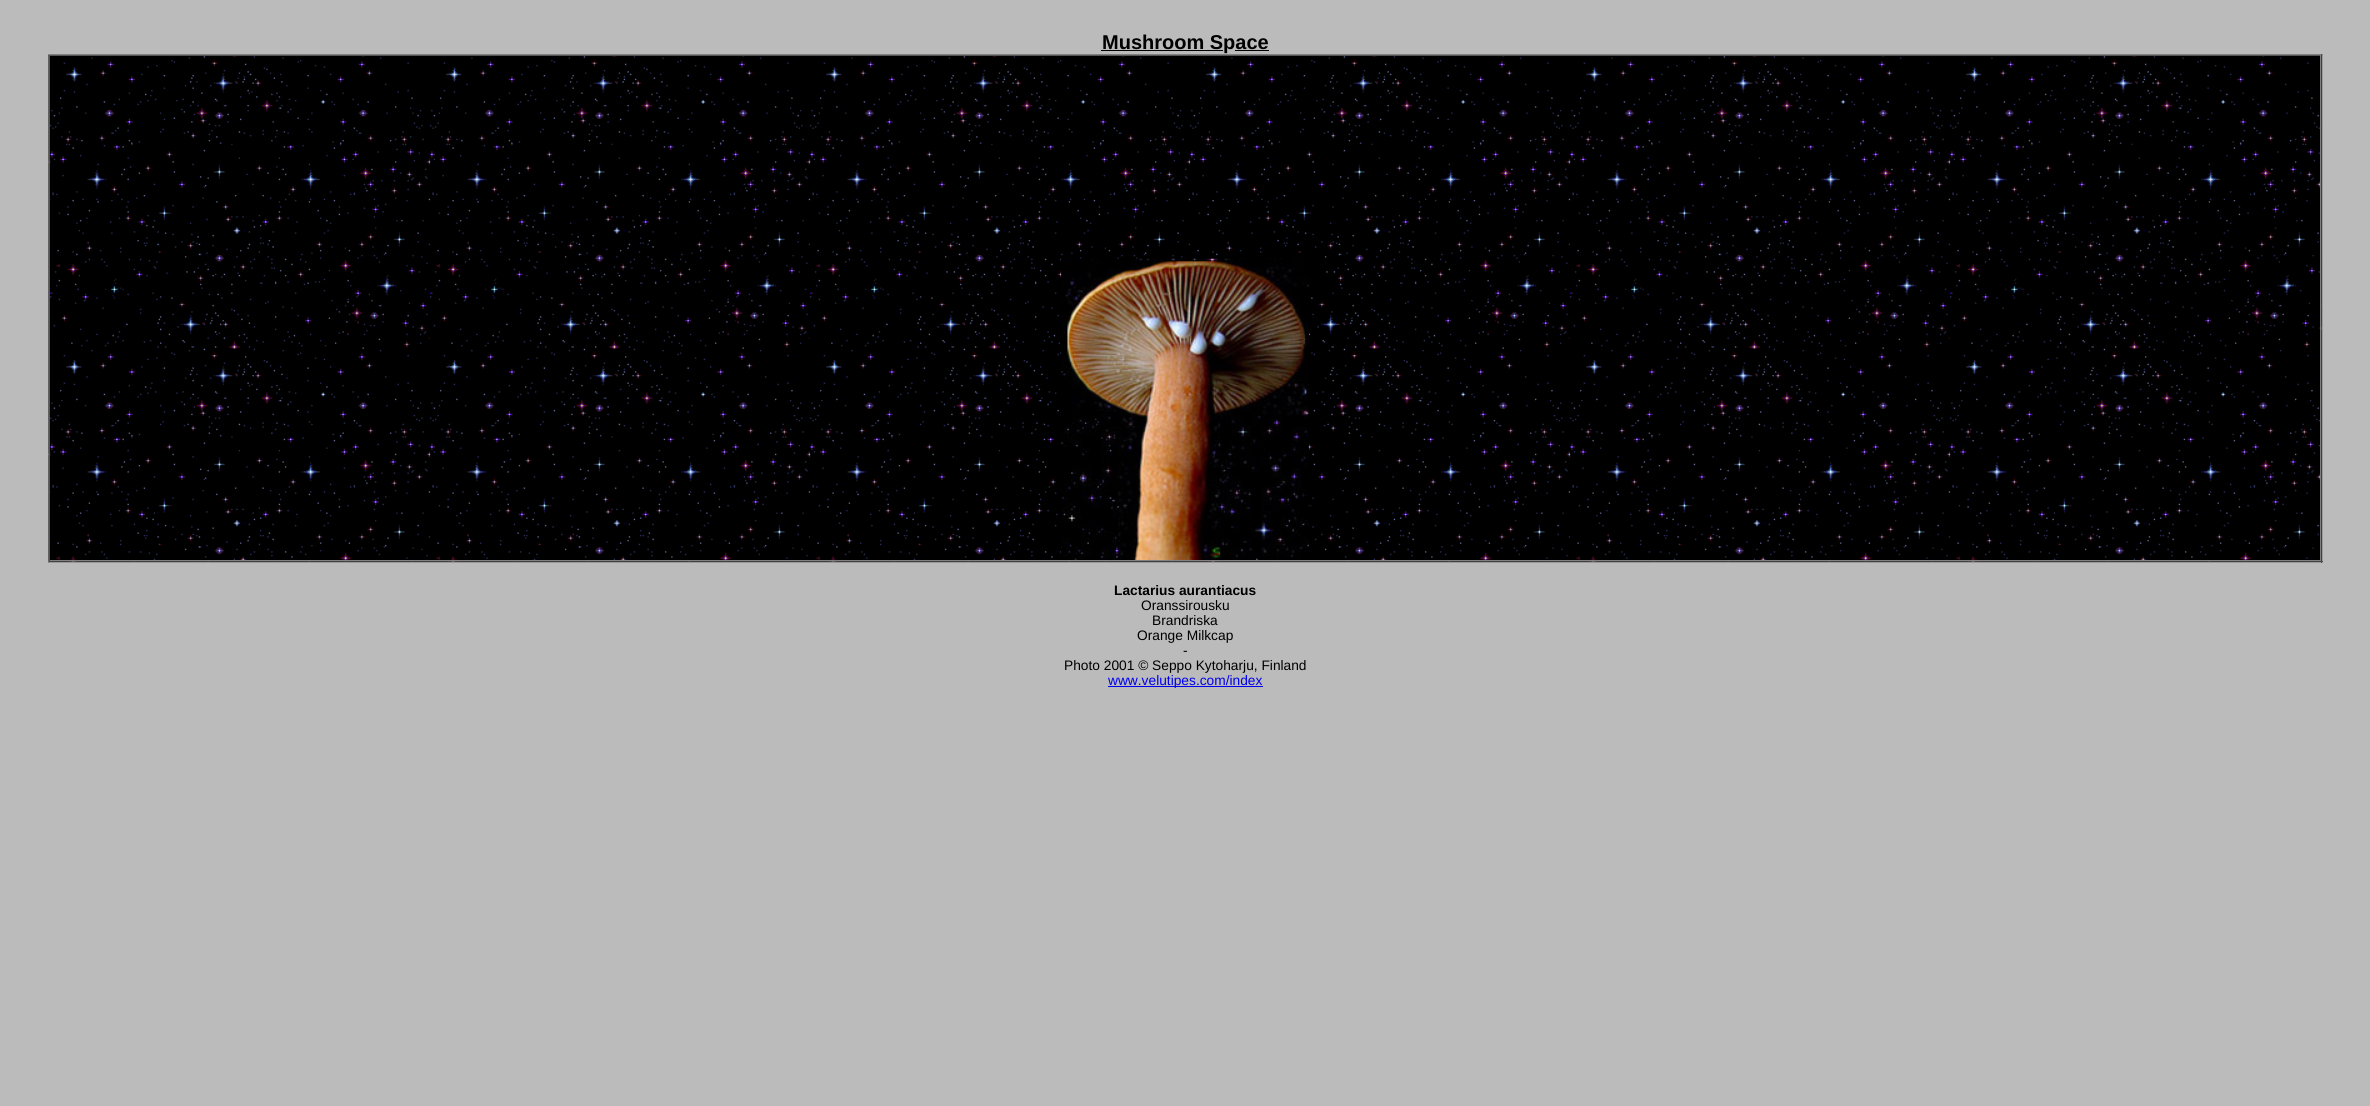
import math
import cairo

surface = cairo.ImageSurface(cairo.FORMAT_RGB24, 2370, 1106)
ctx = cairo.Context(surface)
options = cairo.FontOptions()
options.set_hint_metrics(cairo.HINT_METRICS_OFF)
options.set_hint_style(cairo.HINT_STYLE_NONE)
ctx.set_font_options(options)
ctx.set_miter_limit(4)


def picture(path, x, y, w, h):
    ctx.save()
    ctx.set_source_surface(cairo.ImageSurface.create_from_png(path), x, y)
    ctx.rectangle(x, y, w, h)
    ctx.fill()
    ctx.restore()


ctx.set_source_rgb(0.733, 0.733, 0.733)
ctx.paint()
ctx.set_source_rgb(0, 0, 0)
ctx.rectangle(1101, 50, 122, 1)
ctx.fill()
ctx.select_font_face("Liberation Sans", cairo.FONT_SLANT_NORMAL, cairo.FONT_WEIGHT_BOLD)
ctx.set_font_size(20)
ctx.move_to(1102, 49)
ctx.show_text("Mushroom Space")
ctx.rectangle(1235, 50, 34, 1)
ctx.fill()
ctx.set_source_rgb(0.6, 0.6, 0.6)
ctx.rectangle(49, 55, 2274, 508)
ctx.fill()
ctx.set_source_rgb(0.502, 0.502, 0.502)
ctx.rectangle(48, 54, 2275, 1)
ctx.fill()
ctx.set_source_rgb(0.333, 0.333, 0.333)
ctx.rectangle(2321, 54, 1, 509)
ctx.fill()
ctx.rectangle(48, 561, 2275, 1)
ctx.fill()
ctx.set_source_rgb(0.502, 0.502, 0.502)
ctx.rectangle(48, 54, 1, 509)
ctx.fill()
picture("img1.png", 48, 55, 2274, 507)
ctx.set_source_rgb(0.333, 0.333, 0.333)
ctx.rectangle(49, 55, 2272, 1)
ctx.fill()
ctx.set_source_rgb(0.502, 0.502, 0.502)
ctx.rectangle(2320, 55, 1, 506)
ctx.fill()
ctx.rectangle(49, 560, 2272, 1)
ctx.fill()
ctx.set_source_rgb(0.333, 0.333, 0.333)
ctx.rectangle(49, 55, 1, 506)
ctx.fill()
picture("img2.png", 1061, 258, 248, 302)
ctx.set_font_size(13.75)
ctx.set_source_rgb(0, 0, 0)
ctx.move_to(1114, 595)
ctx.show_text("Lactarius aurantiacus")
ctx.select_font_face("Liberation Sans")
ctx.move_to(1141, 610)
ctx.show_text("Oranssirousku")
ctx.move_to(1152, 625)
ctx.show_text("Brandriska")
ctx.move_to(1137, 640)
ctx.show_text("Orange Milkcap")
ctx.move_to(1183, 655)
ctx.show_text("-")
ctx.move_to(1064, 670)
ctx.show_text("Photo 2001 © Seppo Kytoharju, Finland")
ctx.set_source_rgb(0, 0, 0.933)
ctx.rectangle(1108, 686, 155, 1)
ctx.fill()
ctx.move_to(1108, 685)
ctx.show_text("www.velutipes.com/index")
surface.write_to_png("page.png")
